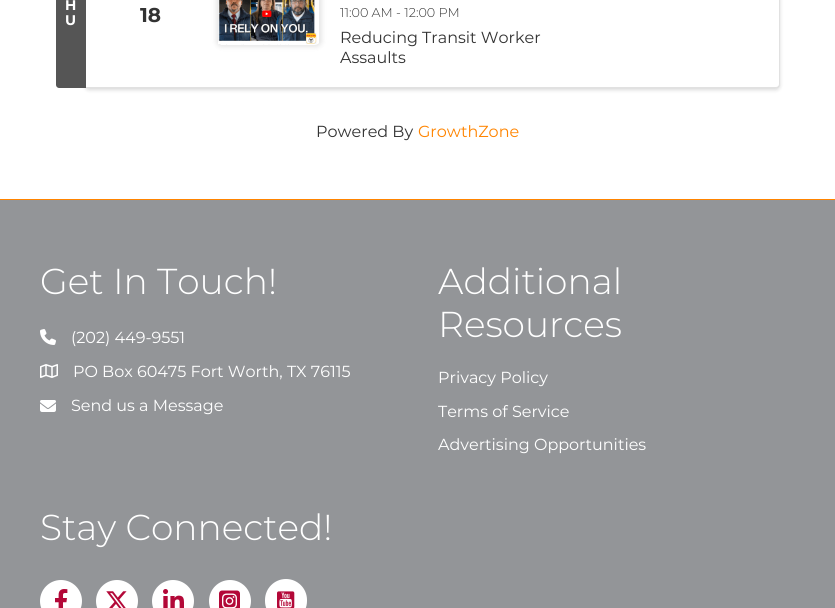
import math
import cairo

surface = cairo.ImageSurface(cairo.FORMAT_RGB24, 835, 608)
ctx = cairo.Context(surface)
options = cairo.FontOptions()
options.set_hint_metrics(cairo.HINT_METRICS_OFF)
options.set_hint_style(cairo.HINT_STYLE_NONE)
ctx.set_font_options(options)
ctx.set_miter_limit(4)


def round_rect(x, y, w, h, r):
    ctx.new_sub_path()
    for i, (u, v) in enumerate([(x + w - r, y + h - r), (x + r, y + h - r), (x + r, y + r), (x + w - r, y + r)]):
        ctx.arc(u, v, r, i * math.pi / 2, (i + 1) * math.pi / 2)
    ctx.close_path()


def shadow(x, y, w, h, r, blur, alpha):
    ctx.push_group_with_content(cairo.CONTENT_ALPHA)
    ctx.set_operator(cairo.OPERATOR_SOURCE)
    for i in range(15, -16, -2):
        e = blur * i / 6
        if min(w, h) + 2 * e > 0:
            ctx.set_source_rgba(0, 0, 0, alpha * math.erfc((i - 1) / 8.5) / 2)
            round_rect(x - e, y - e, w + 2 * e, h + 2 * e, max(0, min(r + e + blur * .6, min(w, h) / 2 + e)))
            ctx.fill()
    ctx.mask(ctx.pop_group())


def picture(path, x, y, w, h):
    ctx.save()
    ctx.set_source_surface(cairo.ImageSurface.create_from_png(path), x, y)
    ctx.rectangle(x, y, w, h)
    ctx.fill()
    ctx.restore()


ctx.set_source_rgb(1, 1, 1)
ctx.paint()
ctx.set_source_rgb(0, 0, 0)
shadow(85, -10, 695, 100, 4, 2, 0.15)
ctx.set_source_rgb(1, 1, 1)
ctx.new_path()
ctx.move_to(85, -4)
ctx.line_to(776, -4)
ctx.curve_to(778, -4, 780, -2, 780, 0)
ctx.line_to(780, 84)
ctx.curve_to(780, 86, 778, 88, 776, 88)
ctx.line_to(85, 88)
ctx.close_path()
ctx.fill()
ctx.new_path()
ctx.move_to(85.5, -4.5)
ctx.line_to(776, -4.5)
ctx.curve_to(778, -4.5, 779.5, -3, 779.5, -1)
ctx.line_to(779.5, 84)
ctx.curve_to(779.5, 86, 778, 87.5, 776, 87.5)
ctx.line_to(85.5, 87.5)
ctx.close_path()
ctx.set_source_rgba(0, 0, 0, 0.12)
ctx.set_line_width(1)
ctx.stroke()
ctx.set_source_rgb(0.333, 0.333, 0.333)
ctx.new_path()
ctx.move_to(59, -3)
ctx.line_to(86, -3)
ctx.line_to(86, 88)
ctx.line_to(59, 88)
ctx.curve_to(57.5, 88, 56, 86.5, 56, 85)
ctx.line_to(56, 0)
ctx.curve_to(56, -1.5, 57.5, -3, 59, -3)
ctx.close_path()
ctx.fill()
ctx.select_font_face("Montserrat", cairo.FONT_SLANT_NORMAL, cairo.FONT_WEIGHT_BOLD)
ctx.set_font_size(14)
ctx.set_source_rgb(1, 1, 1)
ctx.move_to(65, 10)
ctx.show_text("H")
ctx.move_to(65, 25)
ctx.show_text("U")
ctx.set_font_size(20)
ctx.set_source_rgb(0.2, 0.2, 0.2)
ctx.move_to(140, 22)
ctx.show_text("18")
ctx.set_source_rgb(0, 0, 0)
shadow(216, -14, 106, 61, 6, 2.5, 0.1)
picture("img1.png", 218, 0, 101, 45)
ctx.select_font_face("Montserrat Light")
ctx.set_font_size(12.75)
ctx.set_source_rgb(0.2, 0.2, 0.2)
ctx.move_to(340, 17)
ctx.show_text("11:00 AM - 12:00 PM")
ctx.select_font_face("Montserrat")
ctx.set_font_size(16)
ctx.move_to(340, 43)
ctx.show_text("Reducing Transit Worker")
ctx.move_to(340, 63)
ctx.show_text("Assaults")
ctx.move_to(316, 137)
ctx.show_text("Powered By")
ctx.set_source_rgb(1, 0.518, 0)
ctx.move_to(418, 137)
ctx.show_text("GrowthZone")
ctx.rectangle(0, 199, 835, 1)
ctx.fill()
ctx.set_source_rgb(0.576, 0.584, 0.596)
ctx.rectangle(0, 200, 835, 408)
ctx.fill()
ctx.select_font_face("Montserrat Light")
ctx.set_font_size(36)
ctx.set_source_rgb(1, 1, 1)
ctx.move_to(40, 294)
ctx.show_text("Get In Touch!")
picture("img2.png", 40, 329, 16, 16)
ctx.select_font_face("Montserrat")
ctx.set_font_size(16)
ctx.move_to(71, 343)
ctx.show_text("(202) 449-9551")
picture("img3.png", 40, 364, 18, 14)
ctx.move_to(73, 377)
ctx.show_text("PO Box 60475 Fort Worth, TX 76115")
picture("img4.png", 40, 400, 16, 12)
ctx.move_to(71, 411)
ctx.show_text("Send us a Message")
ctx.select_font_face("Montserrat Light")
ctx.set_font_size(36)
ctx.move_to(438, 294)
ctx.show_text("Additional")
ctx.move_to(438, 337)
ctx.show_text("Resources")
ctx.select_font_face("Montserrat")
ctx.set_font_size(16)
ctx.move_to(438, 383)
ctx.show_text("Privacy Policy")
ctx.move_to(438, 417)
ctx.show_text("Terms of Service")
ctx.move_to(438, 450)
ctx.show_text("Advertising Opportunities")
ctx.select_font_face("Montserrat Light")
ctx.set_font_size(36)
ctx.move_to(40, 540)
ctx.show_text("Stay Connected!")
ctx.new_path()
ctx.arc(61, 601, 21, 0, 2 * math.pi)
ctx.fill()
picture("img5.png", 55, 589, 13, 19)
ctx.arc(117, 601, 21, 0, 2 * math.pi)
ctx.fill()
picture("img6.png", 106, 591, 21, 17)
ctx.arc(173, 601, 21, 0, 2 * math.pi)
ctx.fill()
picture("img7.png", 163, 589, 21, 19)
ctx.arc(230, 601, 21, 0, 2 * math.pi)
ctx.fill()
picture("img8.png", 219, 590, 21, 18)
round_rect(265, 579, 42, 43, 21)
ctx.fill()
picture("img9.png", 277, 591, 18, 17)
surface.write_to_png("page.png")
